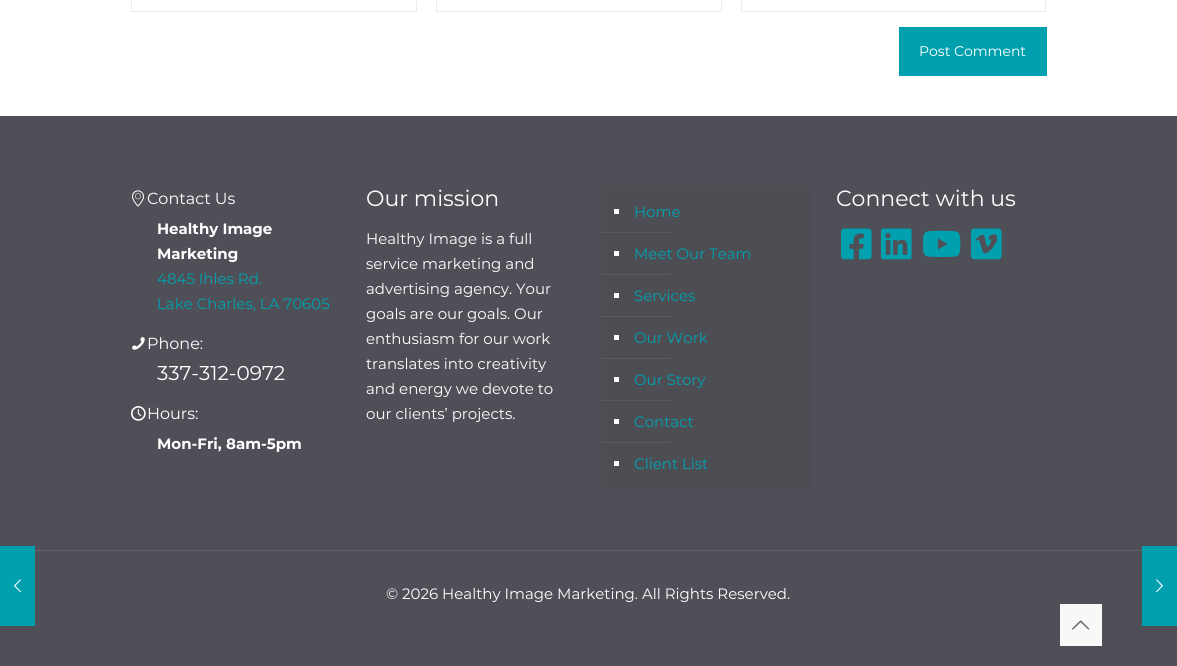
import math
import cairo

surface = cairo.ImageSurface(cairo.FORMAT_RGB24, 1177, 666)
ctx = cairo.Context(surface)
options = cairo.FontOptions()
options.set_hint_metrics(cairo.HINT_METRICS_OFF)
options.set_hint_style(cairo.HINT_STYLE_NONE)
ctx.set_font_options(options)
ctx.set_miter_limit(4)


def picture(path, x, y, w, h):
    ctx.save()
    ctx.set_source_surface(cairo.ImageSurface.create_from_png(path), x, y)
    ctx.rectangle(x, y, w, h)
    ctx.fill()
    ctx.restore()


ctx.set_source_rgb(1, 1, 1)
ctx.paint()
ctx.set_source_rgb(0.31, 0.314, 0.341)
ctx.rectangle(0, 116, 1177, 550)
ctx.fill()
ctx.set_source_rgb(0, 0.627, 0.686)
ctx.rectangle(0, 546, 35, 80)
ctx.fill()
picture("img1.png", 14, 579, 7, 14)
ctx.rectangle(131.5, -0.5, 285, 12)
ctx.set_source_rgb(0.922, 0.922, 0.922)
ctx.set_line_width(1)
ctx.stroke()
ctx.rectangle(436.5, -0.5, 285, 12)
ctx.stroke()
ctx.rectangle(741.5, -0.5, 304, 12)
ctx.stroke()
ctx.set_source_rgb(0, 0.627, 0.686)
ctx.rectangle(899, 27, 148, 49)
ctx.fill()
ctx.select_font_face("Montserrat")
ctx.set_font_size(14)
ctx.set_source_rgb(1, 1, 1)
ctx.move_to(919, 56)
ctx.show_text("Post Comment")
picture("img2.png", 132, 190, 12, 17)
ctx.set_font_size(16)
ctx.move_to(147, 204)
ctx.show_text("Contact Us")
ctx.select_font_face("Montserrat", cairo.FONT_SLANT_NORMAL, cairo.FONT_WEIGHT_BOLD)
ctx.set_font_size(15)
ctx.move_to(157, 234)
ctx.show_text("Healthy Image")
ctx.move_to(157, 259)
ctx.show_text("Marketing")
ctx.select_font_face("Montserrat")
ctx.set_source_rgb(0, 0.627, 0.686)
ctx.move_to(157, 284)
ctx.show_text("4845 Ihles Rd.")
ctx.move_to(157, 309)
ctx.show_text("Lake Charles, LA 70605")
picture("img3.png", 132, 337, 13, 13)
ctx.set_font_size(16)
ctx.set_source_rgb(1, 1, 1)
ctx.move_to(147, 349)
ctx.show_text("Phone:")
ctx.set_font_size(20)
ctx.move_to(157, 380)
ctx.show_text("337-312-0972")
picture("img4.png", 131, 406, 15, 15)
ctx.set_font_size(16)
ctx.move_to(147, 419)
ctx.show_text("Hours:")
ctx.select_font_face("Montserrat", cairo.FONT_SLANT_NORMAL, cairo.FONT_WEIGHT_BOLD)
ctx.set_font_size(15)
ctx.move_to(157, 449)
ctx.show_text("Mon-Fri, 8am-5pm")
ctx.select_font_face("Montserrat")
ctx.set_font_size(22)
ctx.move_to(366, 206)
ctx.show_text("Our mission")
ctx.set_font_size(15)
ctx.move_to(366, 244)
ctx.show_text("Healthy Image is a full")
ctx.move_to(366, 269)
ctx.show_text("service marketing and")
ctx.move_to(366, 294)
ctx.show_text("advertising agency. Your")
ctx.move_to(366, 319)
ctx.show_text("goals are our goals. Our")
ctx.move_to(366, 344)
ctx.show_text("enthusiasm for our work")
ctx.move_to(366, 369)
ctx.show_text("translates into creativity")
ctx.move_to(366, 394)
ctx.show_text("and energy we devote to")
ctx.move_to(366, 419)
ctx.show_text("our clients’ projects.")
ctx.set_source_rgb(0.302, 0.306, 0.329)
ctx.rectangle(601, 186, 211, 304)
ctx.fill()
ctx.set_source_rgb(1, 1, 1)
ctx.rectangle(614, 209, 5, 5)
ctx.fill()
ctx.set_source_rgb(0, 0.627, 0.686)
ctx.move_to(634, 217)
ctx.show_text("Home")
ctx.set_source_rgb(0.357, 0.361, 0.384)
ctx.rectangle(601, 232, 70, 1)
ctx.fill()
ctx.set_source_rgb(1, 1, 1)
ctx.rectangle(614, 251, 5, 5)
ctx.fill()
ctx.set_source_rgb(0, 0.627, 0.686)
ctx.move_to(634, 259)
ctx.show_text("Meet Our Team")
ctx.set_source_rgb(0.357, 0.361, 0.384)
ctx.rectangle(601, 274, 70, 1)
ctx.fill()
ctx.set_source_rgb(1, 1, 1)
ctx.rectangle(614, 293, 5, 5)
ctx.fill()
ctx.set_source_rgb(0, 0.627, 0.686)
ctx.move_to(634, 301)
ctx.show_text("Services")
ctx.set_source_rgb(0.357, 0.361, 0.384)
ctx.rectangle(601, 316, 70, 1)
ctx.fill()
ctx.set_source_rgb(1, 1, 1)
ctx.rectangle(614, 335, 5, 5)
ctx.fill()
ctx.set_source_rgb(0, 0.627, 0.686)
ctx.move_to(634, 343)
ctx.show_text("Our Work")
ctx.set_source_rgb(0.357, 0.361, 0.384)
ctx.rectangle(601, 358, 70, 1)
ctx.fill()
ctx.set_source_rgb(1, 1, 1)
ctx.rectangle(614, 377, 5, 5)
ctx.fill()
ctx.set_source_rgb(0, 0.627, 0.686)
ctx.move_to(634, 385)
ctx.show_text("Our Story")
ctx.set_source_rgb(0.357, 0.361, 0.384)
ctx.rectangle(601, 400, 70, 1)
ctx.fill()
ctx.set_source_rgb(1, 1, 1)
ctx.rectangle(614, 419, 5, 5)
ctx.fill()
ctx.set_source_rgb(0, 0.627, 0.686)
ctx.move_to(634, 427)
ctx.show_text("Contact")
ctx.set_source_rgb(0.357, 0.361, 0.384)
ctx.rectangle(601, 442, 70, 1)
ctx.fill()
ctx.set_source_rgb(1, 1, 1)
ctx.rectangle(614, 461, 5, 5)
ctx.fill()
ctx.set_source_rgb(0, 0.627, 0.686)
ctx.move_to(634, 469)
ctx.show_text("Client List")
ctx.set_font_size(22)
ctx.set_source_rgb(1, 1, 1)
ctx.move_to(836, 206)
ctx.show_text("Connect with us")
picture("img5.png", 841, 228, 31, 32)
picture("img6.png", 881, 228, 31, 32)
picture("img7.png", 923, 230, 38, 27)
picture("img8.png", 971, 228, 31, 32)
ctx.set_source_rgb(0.38, 0.384, 0.408)
ctx.rectangle(35, 550, 1107, 1)
ctx.fill()
ctx.set_font_size(15)
ctx.set_source_rgb(1, 1, 1)
ctx.move_to(386, 599)
ctx.show_text("© 2026 Healthy Image Marketing. All Rights Reserved.")
ctx.set_source_rgb(0.969, 0.969, 0.969)
ctx.rectangle(1060, 604, 42, 42)
ctx.fill()
picture("img9.png", 1072, 620, 18, 10)
ctx.set_source_rgb(0, 0.627, 0.686)
ctx.rectangle(1142, 546, 35, 80)
ctx.fill()
picture("img10.png", 1156, 579, 7, 14)
surface.write_to_png("page.png")
